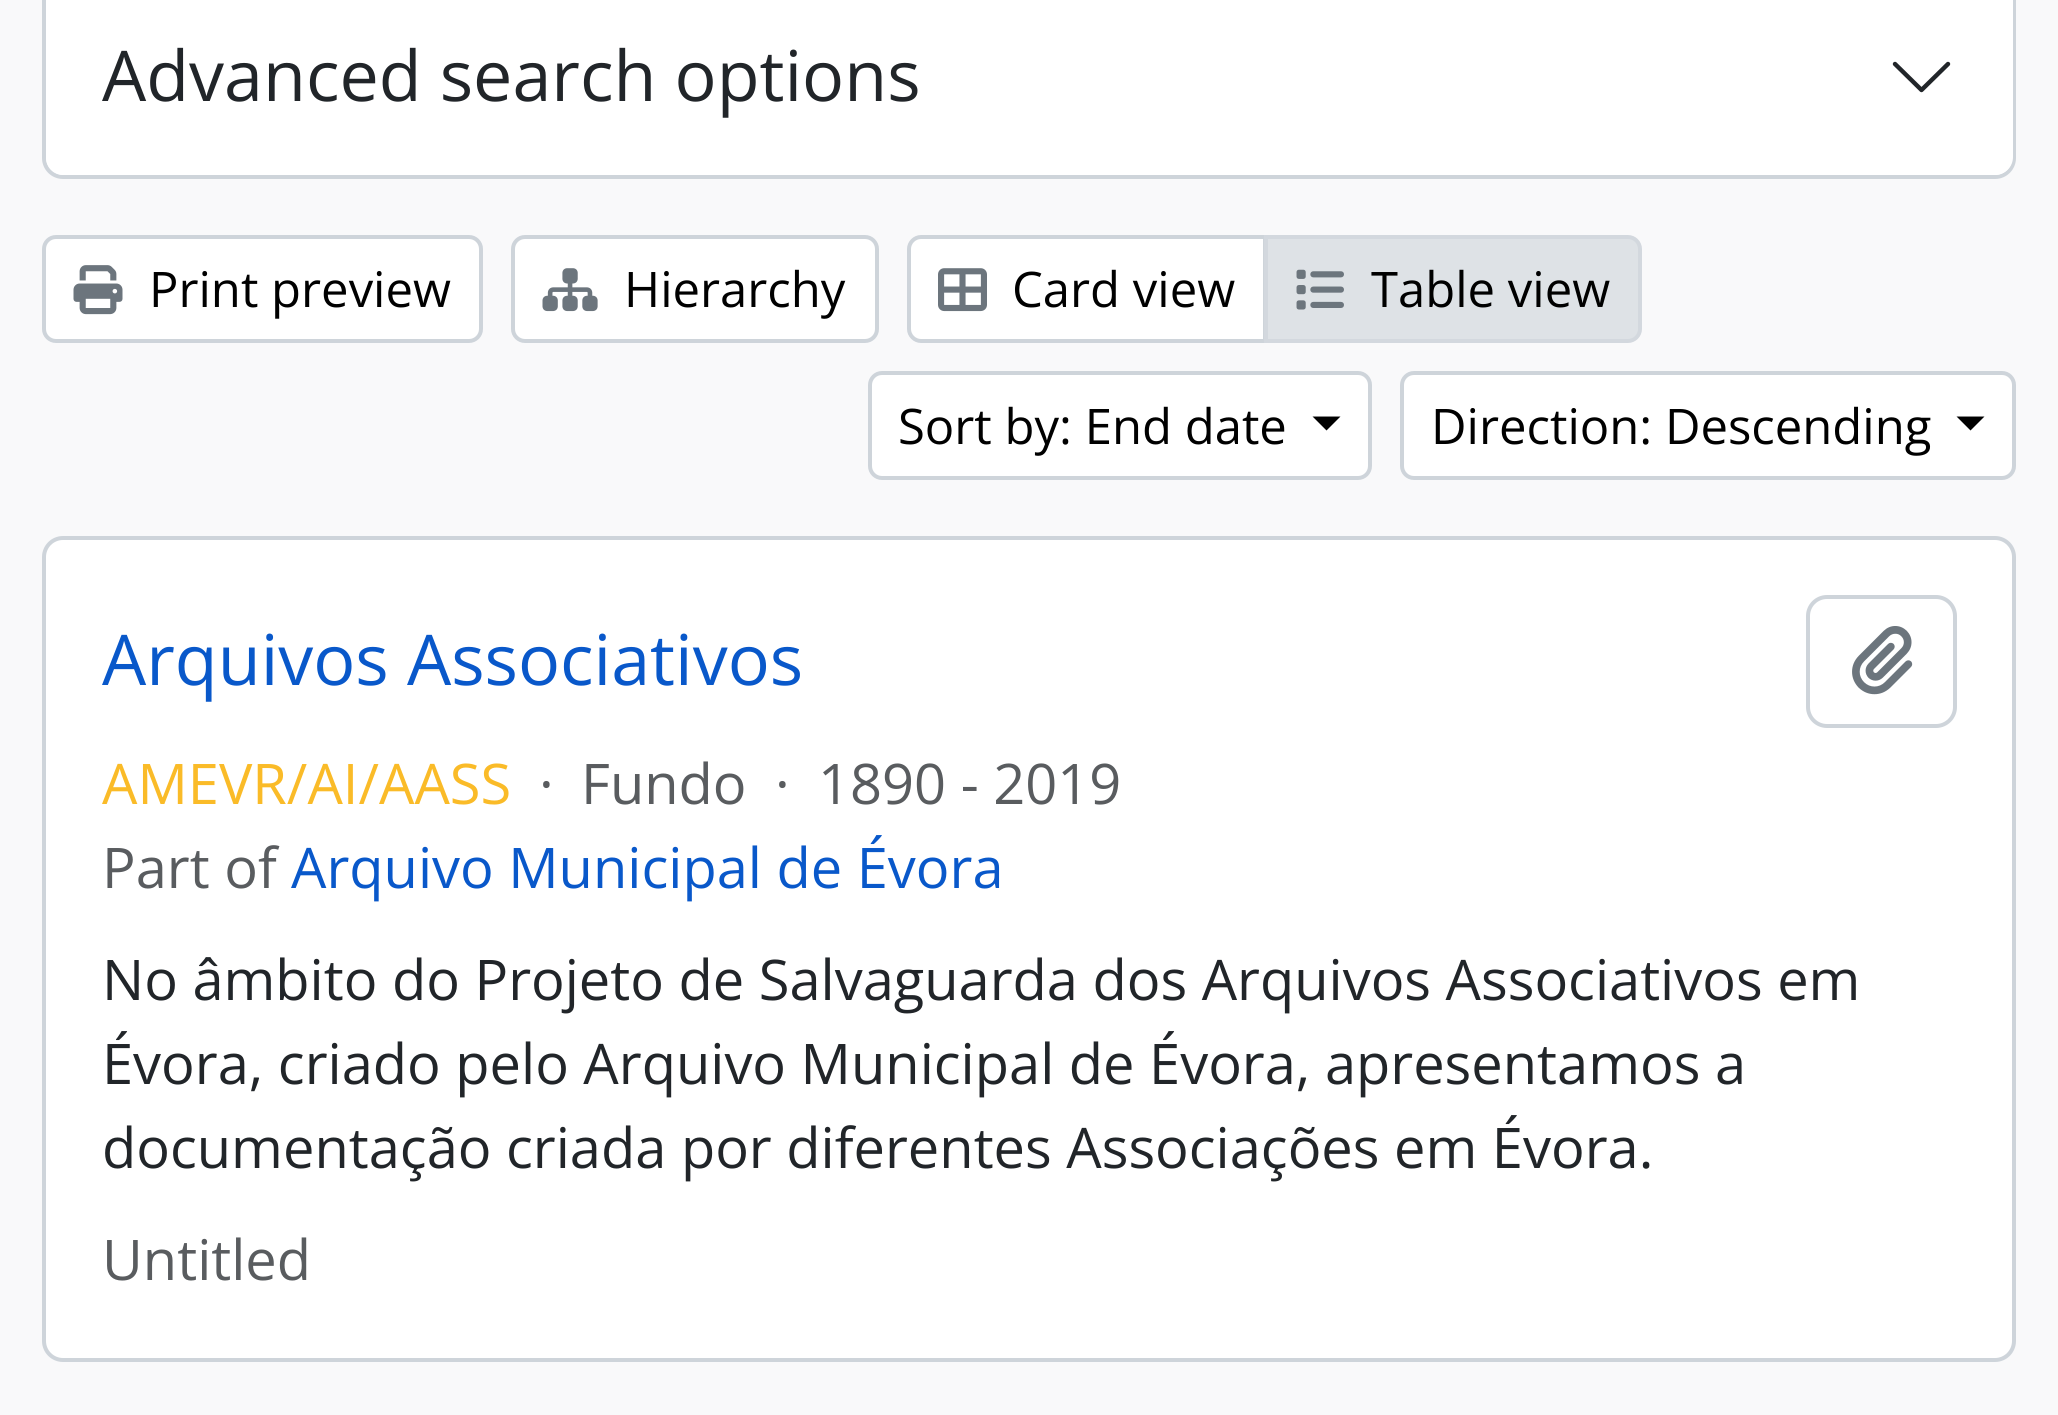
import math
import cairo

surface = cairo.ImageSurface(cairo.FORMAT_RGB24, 2058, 1415)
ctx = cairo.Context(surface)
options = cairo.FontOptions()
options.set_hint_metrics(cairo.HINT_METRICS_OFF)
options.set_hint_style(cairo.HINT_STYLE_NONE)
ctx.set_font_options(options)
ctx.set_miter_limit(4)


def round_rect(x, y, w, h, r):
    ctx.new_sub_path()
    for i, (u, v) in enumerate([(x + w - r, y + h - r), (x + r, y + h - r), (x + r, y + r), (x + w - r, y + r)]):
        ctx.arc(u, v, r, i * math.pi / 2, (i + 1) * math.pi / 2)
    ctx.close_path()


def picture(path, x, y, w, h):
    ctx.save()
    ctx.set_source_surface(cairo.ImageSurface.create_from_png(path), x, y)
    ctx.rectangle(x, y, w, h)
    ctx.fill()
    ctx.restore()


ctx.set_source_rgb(0.973, 0.976, 0.98)
ctx.paint()
ctx.set_source_rgb(1, 1, 1)
round_rect(44, -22, 1970, 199, 19)
ctx.fill_preserve()
ctx.set_source_rgb(0.808, 0.831, 0.855)
ctx.set_line_width(4)
ctx.stroke()
ctx.set_source_rgb(1, 1, 1)
round_rect(46, -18, 1967, 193, 18)
ctx.fill()
ctx.select_font_face("Open Sans")
ctx.set_font_size(70)
ctx.set_source_rgb(0.129, 0.145, 0.161)
ctx.move_to(102, 101)
ctx.show_text("Advanced search options")
ctx.new_path()
ctx.move_to(1895, 64)
ctx.line_to(1921.5, 90)
ctx.line_to(1948, 64)
ctx.set_line_width(4.4)
ctx.set_line_cap(cairo.LINE_CAP_ROUND)
ctx.set_line_join(cairo.LINE_JOIN_ROUND)
ctx.stroke()
ctx.set_source_rgb(1, 1, 1)
round_rect(44, 237, 437, 104, 12)
ctx.fill_preserve()
ctx.set_source_rgb(0.808, 0.831, 0.855)
ctx.set_line_width(4)
ctx.set_line_cap(cairo.LINE_CAP_BUTT)
ctx.set_line_join(cairo.LINE_JOIN_MITER)
ctx.stroke()
picture("img1.png", 73, 265, 50, 50)
ctx.set_font_size(49)
ctx.set_source_rgb(0, 0, 0)
ctx.move_to(149, 307)
ctx.show_text("Print preview")
ctx.set_source_rgb(1, 1, 1)
round_rect(513, 237, 364, 104, 12)
ctx.fill_preserve()
ctx.set_source_rgb(0.808, 0.831, 0.855)
ctx.stroke()
picture("img2.png", 542, 268, 56, 44)
ctx.set_source_rgb(0, 0, 0)
ctx.move_to(624, 307)
ctx.show_text("Hierarchy")
ctx.set_source_rgb(1, 1, 1)
ctx.new_path()
ctx.move_to(921, 237)
ctx.line_to(1265, 237)
ctx.line_to(1265, 341)
ctx.line_to(921, 341)
ctx.curve_to(914.5, 341, 909, 335.5, 909, 329)
ctx.line_to(909, 249)
ctx.curve_to(909, 242.5, 914.5, 237, 921, 237)
ctx.close_path()
ctx.fill_preserve()
ctx.set_source_rgb(0.808, 0.831, 0.855)
ctx.stroke()
picture("img3.png", 938, 268, 49, 44)
ctx.set_source_rgb(0, 0, 0)
ctx.move_to(1012, 307)
ctx.show_text("Card view")
ctx.set_source_rgb(0.871, 0.886, 0.902)
ctx.new_path()
ctx.move_to(1266, 237)
ctx.line_to(1628, 237)
ctx.curve_to(1634.5, 237, 1640, 242.5, 1640, 249)
ctx.line_to(1640, 329)
ctx.curve_to(1640, 335.5, 1634.5, 341, 1628, 341)
ctx.line_to(1266, 341)
ctx.close_path()
ctx.fill_preserve()
ctx.set_source_rgb(0.827, 0.847, 0.871)
ctx.stroke()
picture("img4.png", 1296, 269, 48, 41)
ctx.set_source_rgb(0, 0, 0)
ctx.move_to(1371, 307)
ctx.show_text("Table view")
ctx.set_source_rgb(1, 1, 1)
round_rect(870, 373, 500, 105, 12)
ctx.fill_preserve()
ctx.set_source_rgb(0.808, 0.831, 0.855)
ctx.stroke()
ctx.set_source_rgb(0, 0, 0)
ctx.move_to(898, 444)
ctx.show_text("Sort by: End date")
ctx.new_path()
ctx.move_to(1312.5, 416.5)
ctx.line_to(1340.5, 416.5)
ctx.line_to(1326.5, 430.5)
ctx.close_path()
ctx.fill()
ctx.set_source_rgb(1, 1, 1)
round_rect(1402, 373, 612, 105, 12)
ctx.fill_preserve()
ctx.set_source_rgb(0.808, 0.831, 0.855)
ctx.stroke()
ctx.set_source_rgb(0, 0, 0)
ctx.move_to(1431, 444)
ctx.show_text("Direction: Descending")
ctx.new_path()
ctx.move_to(1956.5, 416.5)
ctx.line_to(1984.5, 416.5)
ctx.line_to(1970.5, 430.5)
ctx.close_path()
ctx.fill()
ctx.set_source_rgb(1, 1, 1)
round_rect(44, 538, 1970, 822, 19)
ctx.fill_preserve()
ctx.set_source_rgb(0.808, 0.831, 0.855)
ctx.stroke()
ctx.set_font_size(70)
ctx.set_source_rgb(0.039, 0.345, 0.792)
ctx.move_to(102, 685)
ctx.show_text("Arquivos Associativos")
round_rect(1808, 597, 147, 129, 19)
ctx.set_source_rgb(0.808, 0.831, 0.855)
ctx.stroke()
picture("img5.png", 1852, 626, 61, 69)
ctx.set_font_size(56)
ctx.set_source_rgb(0.98, 0.733, 0.157)
ctx.move_to(102, 804)
ctx.show_text("AMEVR/AI/AASS")
ctx.set_source_rgb(0.349, 0.361, 0.373)
ctx.move_to(539, 804)
ctx.show_text("·")
ctx.move_to(581, 804)
ctx.show_text("Fundo")
ctx.move_to(775, 804)
ctx.show_text("·")
ctx.move_to(818, 804)
ctx.show_text("1890 - 2019")
ctx.move_to(102, 888)
ctx.show_text("Part of")
ctx.set_source_rgb(0.039, 0.345, 0.792)
ctx.move_to(291, 888)
ctx.show_text("Arquivo Municipal de Évora")
ctx.set_source_rgb(0.129, 0.145, 0.161)
ctx.move_to(102, 1000)
ctx.show_text("No âmbito do Projeto de Salvaguarda dos Arquivos Associativos em")
ctx.move_to(102, 1084)
ctx.show_text("Évora, criado pelo Arquivo Municipal de Évora, apresentamos a")
ctx.move_to(102, 1168)
ctx.show_text("documentação criada por diferentes Associações em Évora.")
ctx.set_source_rgb(0.349, 0.361, 0.373)
ctx.move_to(102, 1280)
ctx.show_text("Untitled")
surface.write_to_png("page.png")
